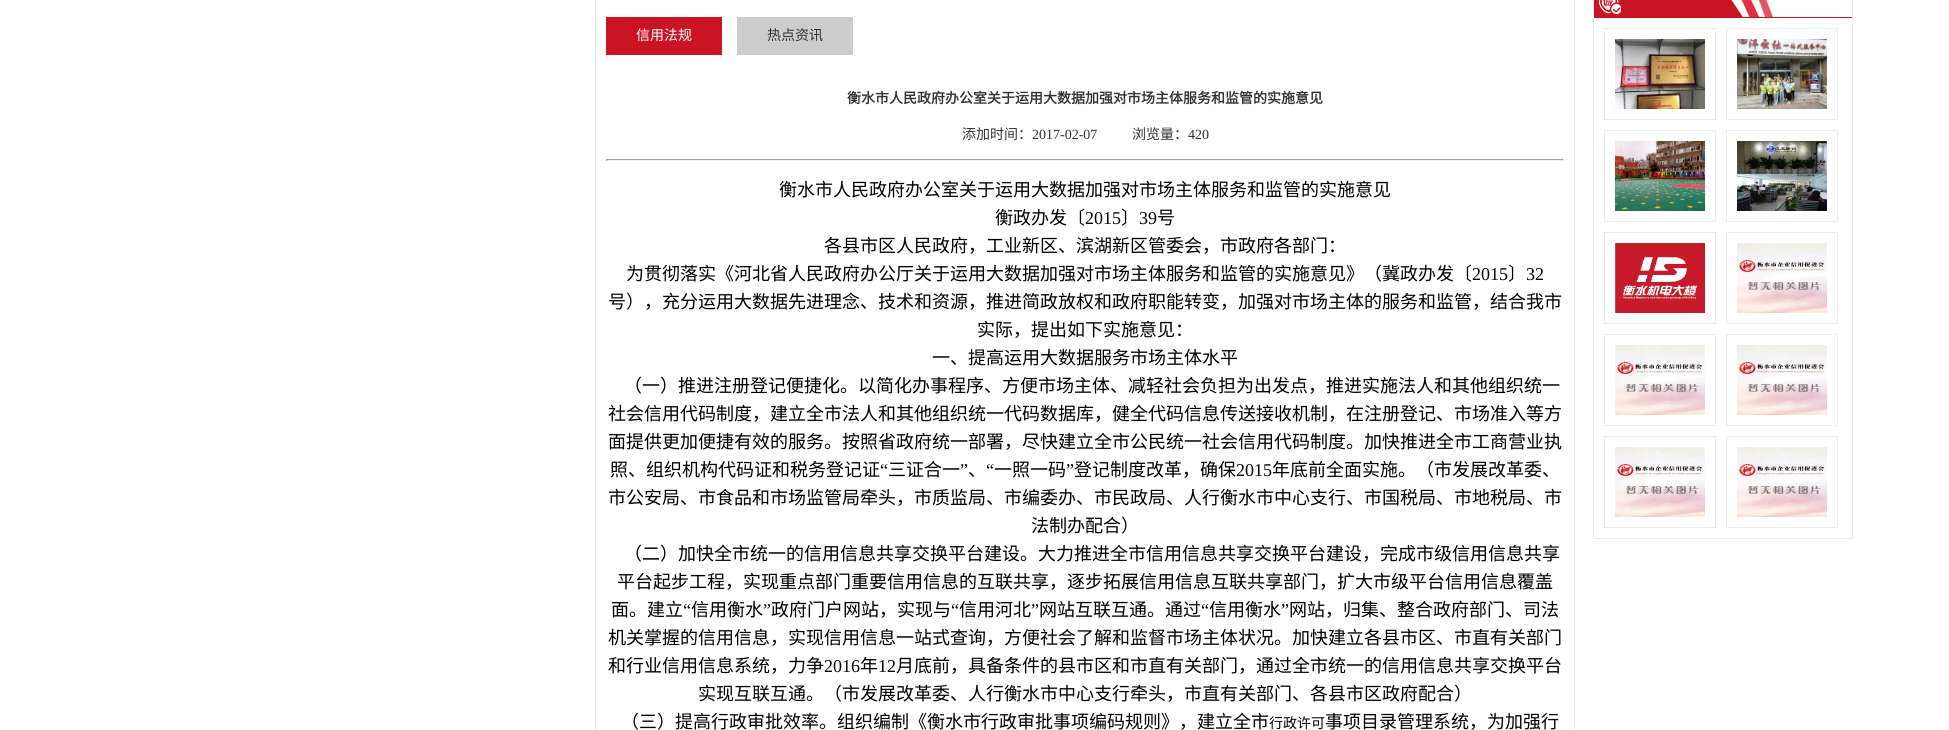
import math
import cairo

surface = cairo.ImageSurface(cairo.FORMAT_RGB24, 1949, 730)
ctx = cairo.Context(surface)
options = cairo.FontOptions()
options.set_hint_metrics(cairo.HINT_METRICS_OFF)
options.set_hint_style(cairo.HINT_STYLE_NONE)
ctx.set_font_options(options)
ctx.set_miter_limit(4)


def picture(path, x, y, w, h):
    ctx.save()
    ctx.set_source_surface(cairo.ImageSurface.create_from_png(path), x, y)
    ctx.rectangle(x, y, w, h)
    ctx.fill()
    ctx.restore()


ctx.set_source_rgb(1, 1, 1)
ctx.paint()
ctx.rectangle(595.5, -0.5, 979, 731)
ctx.set_source_rgb(0.918, 0.918, 0.918)
ctx.set_line_width(1)
ctx.stroke()
ctx.set_source_rgb(0.792, 0.082, 0.141)
ctx.rectangle(606, 17, 116, 38)
ctx.fill()
ctx.select_font_face("Noto Sans CJK SC")
ctx.set_font_size(14)
ctx.set_source_rgb(1, 1, 1)
ctx.move_to(636, 40)
ctx.show_text("信用法规")
ctx.set_source_rgb(0.8, 0.8, 0.8)
ctx.rectangle(737, 17, 116, 38)
ctx.fill()
ctx.set_source_rgb(0.2, 0.2, 0.2)
ctx.move_to(767, 40)
ctx.show_text("热点资讯")
ctx.select_font_face("Noto Sans CJK SC", cairo.FONT_SLANT_NORMAL, cairo.FONT_WEIGHT_BOLD)
ctx.move_to(847, 103)
ctx.show_text("衡水市人民政府办公室关于运用大数据加强对市场主体服务和监管的实施意见")
ctx.select_font_face("Noto Sans CJK SC")
ctx.move_to(962, 139)
ctx.show_text("添加时间：")
ctx.select_font_face("Liberation Serif")
ctx.move_to(1032, 139)
ctx.show_text("2017-02-07")
ctx.select_font_face("Noto Sans CJK SC")
ctx.move_to(1132, 139)
ctx.show_text("浏览量：")
ctx.select_font_face("Liberation Serif")
ctx.move_to(1188, 139)
ctx.show_text("420")
ctx.set_source_rgb(0.624, 0.624, 0.624)
ctx.rectangle(606, 159, 958, 1)
ctx.fill()
ctx.set_source_rgb(0.933, 0.933, 0.933)
ctx.rectangle(1563, 159, 1, 2)
ctx.fill()
ctx.rectangle(606, 160, 958, 1)
ctx.fill()
ctx.set_source_rgb(0.624, 0.624, 0.624)
ctx.rectangle(606, 159, 1, 2)
ctx.fill()
ctx.select_font_face("Noto Sans CJK SC")
ctx.set_font_size(18)
ctx.set_source_rgb(0, 0, 0)
ctx.move_to(779, 196)
ctx.show_text("衡水市人民政府办公室关于运用大数据加强对市场主体服务和监管的实施意见")
ctx.move_to(995, 224)
ctx.show_text("衡政办发〔")
ctx.select_font_face("Liberation Serif")
ctx.move_to(1085, 224)
ctx.show_text("2015")
ctx.select_font_face("Noto Sans CJK SC")
ctx.move_to(1121, 224)
ctx.show_text("〕")
ctx.select_font_face("Liberation Serif")
ctx.move_to(1139, 224)
ctx.show_text("39")
ctx.select_font_face("Noto Sans CJK SC")
ctx.move_to(1157, 224)
ctx.show_text("号")
ctx.move_to(824, 252)
ctx.show_text("各县市区人民政府，工业新区、滨湖新区管委会，市政府各部门：")
ctx.move_to(626, 280)
ctx.show_text("为贯彻落实《河北省人民政府办公厅关于运用大数据加强对市场主体服务和监管的实施意见》（冀政办发〔")
ctx.select_font_face("Liberation Serif")
ctx.move_to(1472, 280)
ctx.show_text("2015")
ctx.select_font_face("Noto Sans CJK SC")
ctx.move_to(1508, 280)
ctx.show_text("〕")
ctx.select_font_face("Liberation Serif")
ctx.move_to(1526, 280)
ctx.show_text("32")
ctx.select_font_face("Noto Sans CJK SC")
ctx.move_to(608, 308)
ctx.show_text("号），充分运用大数据先进理念、技术和资源，推进简政放权和政府职能转变，加强对市场主体的服务和监管，结合我市")
ctx.move_to(977, 336)
ctx.show_text("实际，提出如下实施意见：")
ctx.move_to(932, 364)
ctx.show_text("一、提高运用大数据服务市场主体水平")
ctx.move_to(624, 392)
ctx.show_text("（一）推进注册登记便捷化。以简化办事程序、方便市场主体、减轻社会负担为出发点，推进实施法人和其他组织统一")
ctx.move_to(608, 420)
ctx.show_text("社会信用代码制度，建立全市法人和其他组织统一代码数据库，健全代码信息传送接收机制，在注册登记、市场准入等方")
ctx.move_to(608, 448)
ctx.show_text("面提供更加便捷有效的服务。按照省政府统一部署，尽快建立全市公民统一社会信用代码制度。加快推进全市工商营业执")
ctx.move_to(610, 476)
ctx.show_text("照、组织机构代码证和税务登记证")
ctx.select_font_face("Liberation Serif")
ctx.move_to(880, 476)
ctx.show_text("“")
ctx.select_font_face("Noto Sans CJK SC")
ctx.move_to(888, 476)
ctx.show_text("三证合一")
ctx.select_font_face("Liberation Serif")
ctx.move_to(960, 476)
ctx.show_text("”")
ctx.select_font_face("Noto Sans CJK SC")
ctx.move_to(968, 476)
ctx.show_text("、")
ctx.select_font_face("Liberation Serif")
ctx.move_to(986, 476)
ctx.show_text("“")
ctx.select_font_face("Noto Sans CJK SC")
ctx.move_to(994, 476)
ctx.show_text("一照一码")
ctx.select_font_face("Liberation Serif")
ctx.move_to(1066, 476)
ctx.show_text("”")
ctx.select_font_face("Noto Sans CJK SC")
ctx.move_to(1074, 476)
ctx.show_text("登记制度改革，确保")
ctx.select_font_face("Liberation Serif")
ctx.move_to(1236, 476)
ctx.show_text("2015")
ctx.select_font_face("Noto Sans CJK SC")
ctx.move_to(1272, 476)
ctx.show_text("年底前全面实施。（市发展改革委、")
ctx.move_to(608, 504)
ctx.show_text("市公安局、市食品和市场监管局牵头，市质监局、市编委办、市民政局、人行衡水市中心支行、市国税局、市地税局、市")
ctx.move_to(1031, 532)
ctx.show_text("法制办配合）")
ctx.move_to(624, 560)
ctx.show_text("（二）加快全市统一的信用信息共享交换平台建设。大力推进全市信用信息共享交换平台建设，完成市级信用信息共享")
ctx.move_to(617, 588)
ctx.show_text("平台起步工程，实现重点部门重要信用信息的互联共享，逐步拓展信用信息互联共享部门，扩大市级平台信用信息覆盖")
ctx.move_to(611, 616)
ctx.show_text("面。建立")
ctx.select_font_face("Liberation Serif")
ctx.move_to(683, 616)
ctx.show_text("“")
ctx.select_font_face("Noto Sans CJK SC")
ctx.move_to(691, 616)
ctx.show_text("信用衡水")
ctx.select_font_face("Liberation Serif")
ctx.move_to(763, 616)
ctx.show_text("”")
ctx.select_font_face("Noto Sans CJK SC")
ctx.move_to(771, 616)
ctx.show_text("政府门户网站，实现与")
ctx.select_font_face("Liberation Serif")
ctx.move_to(951, 616)
ctx.show_text("“")
ctx.select_font_face("Noto Sans CJK SC")
ctx.move_to(959, 616)
ctx.show_text("信用河北")
ctx.select_font_face("Liberation Serif")
ctx.move_to(1031, 616)
ctx.show_text("”")
ctx.select_font_face("Noto Sans CJK SC")
ctx.move_to(1039, 616)
ctx.show_text("网站互联互通。通过")
ctx.select_font_face("Liberation Serif")
ctx.move_to(1201, 616)
ctx.show_text("“")
ctx.select_font_face("Noto Sans CJK SC")
ctx.move_to(1209, 616)
ctx.show_text("信用衡水")
ctx.select_font_face("Liberation Serif")
ctx.move_to(1281, 616)
ctx.show_text("”")
ctx.select_font_face("Noto Sans CJK SC")
ctx.move_to(1289, 616)
ctx.show_text("网站，归集、整合政府部门、司法")
ctx.move_to(608, 644)
ctx.show_text("机关掌握的信用信息，实现信用信息一站式查询，方便社会了解和监督市场主体状况。加快建立各县市区、市直有关部门")
ctx.move_to(608, 672)
ctx.show_text("和行业信用信息系统，力争")
ctx.select_font_face("Liberation Serif")
ctx.move_to(824, 672)
ctx.show_text("2016")
ctx.select_font_face("Noto Sans CJK SC")
ctx.move_to(860, 672)
ctx.show_text("年")
ctx.select_font_face("Liberation Serif")
ctx.move_to(878, 672)
ctx.show_text("12")
ctx.select_font_face("Noto Sans CJK SC")
ctx.move_to(896, 672)
ctx.show_text("月底前，具备条件的县市区和市直有关部门，通过全市统一的信用信息共享交换平台")
ctx.move_to(698, 700)
ctx.show_text("实现互联互通。（市发展改革委、人行衡水市中心支行牵头，市直有关部门、各县市区政府配合）")
ctx.move_to(621, 728)
ctx.show_text("（三）提高行政审批效率。组织编制《衡水市行政审批事项编码规则》，建立全市")
ctx.set_font_size(14)
ctx.move_to(1269, 728)
ctx.show_text("行政许可")
ctx.set_font_size(18)
ctx.move_to(1325, 728)
ctx.show_text("事项目录管理系统，为加强行")
ctx.rectangle(1593.5, -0.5, 259, 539)
ctx.set_source_rgb(0.918, 0.918, 0.918)
ctx.stroke()
ctx.set_source_rgb(0.792, 0.082, 0.141)
ctx.rectangle(1594, 17, 258, 1)
ctx.fill()
picture("img1.png", 1594, 0, 180, 17)
ctx.rectangle(1604.5, 28.5, 111, 91)
ctx.set_source_rgb(0.922, 0.922, 0.922)
ctx.stroke()
picture("img2.png", 1615, 39, 90, 70)
ctx.rectangle(1726.5, 28.5, 111, 91)
ctx.stroke()
picture("img3.png", 1737, 39, 90, 70)
ctx.rectangle(1604.5, 130.5, 111, 91)
ctx.stroke()
picture("img4.png", 1615, 141, 90, 70)
ctx.rectangle(1726.5, 130.5, 111, 91)
ctx.stroke()
picture("img5.png", 1737, 141, 90, 70)
ctx.rectangle(1604.5, 232.5, 111, 91)
ctx.stroke()
picture("img6.png", 1615, 243, 90, 70)
ctx.rectangle(1726.5, 232.5, 111, 91)
ctx.stroke()
picture("img7.png", 1737, 243, 90, 70)
ctx.rectangle(1604.5, 334.5, 111, 91)
ctx.stroke()
picture("img8.png", 1615, 345, 90, 70)
ctx.rectangle(1726.5, 334.5, 111, 91)
ctx.stroke()
picture("img7.png", 1737, 345, 90, 70)
ctx.rectangle(1604.5, 436.5, 111, 91)
ctx.stroke()
picture("img8.png", 1615, 447, 90, 70)
ctx.rectangle(1726.5, 436.5, 111, 91)
ctx.stroke()
picture("img7.png", 1737, 447, 90, 70)
surface.write_to_png("page.png")
